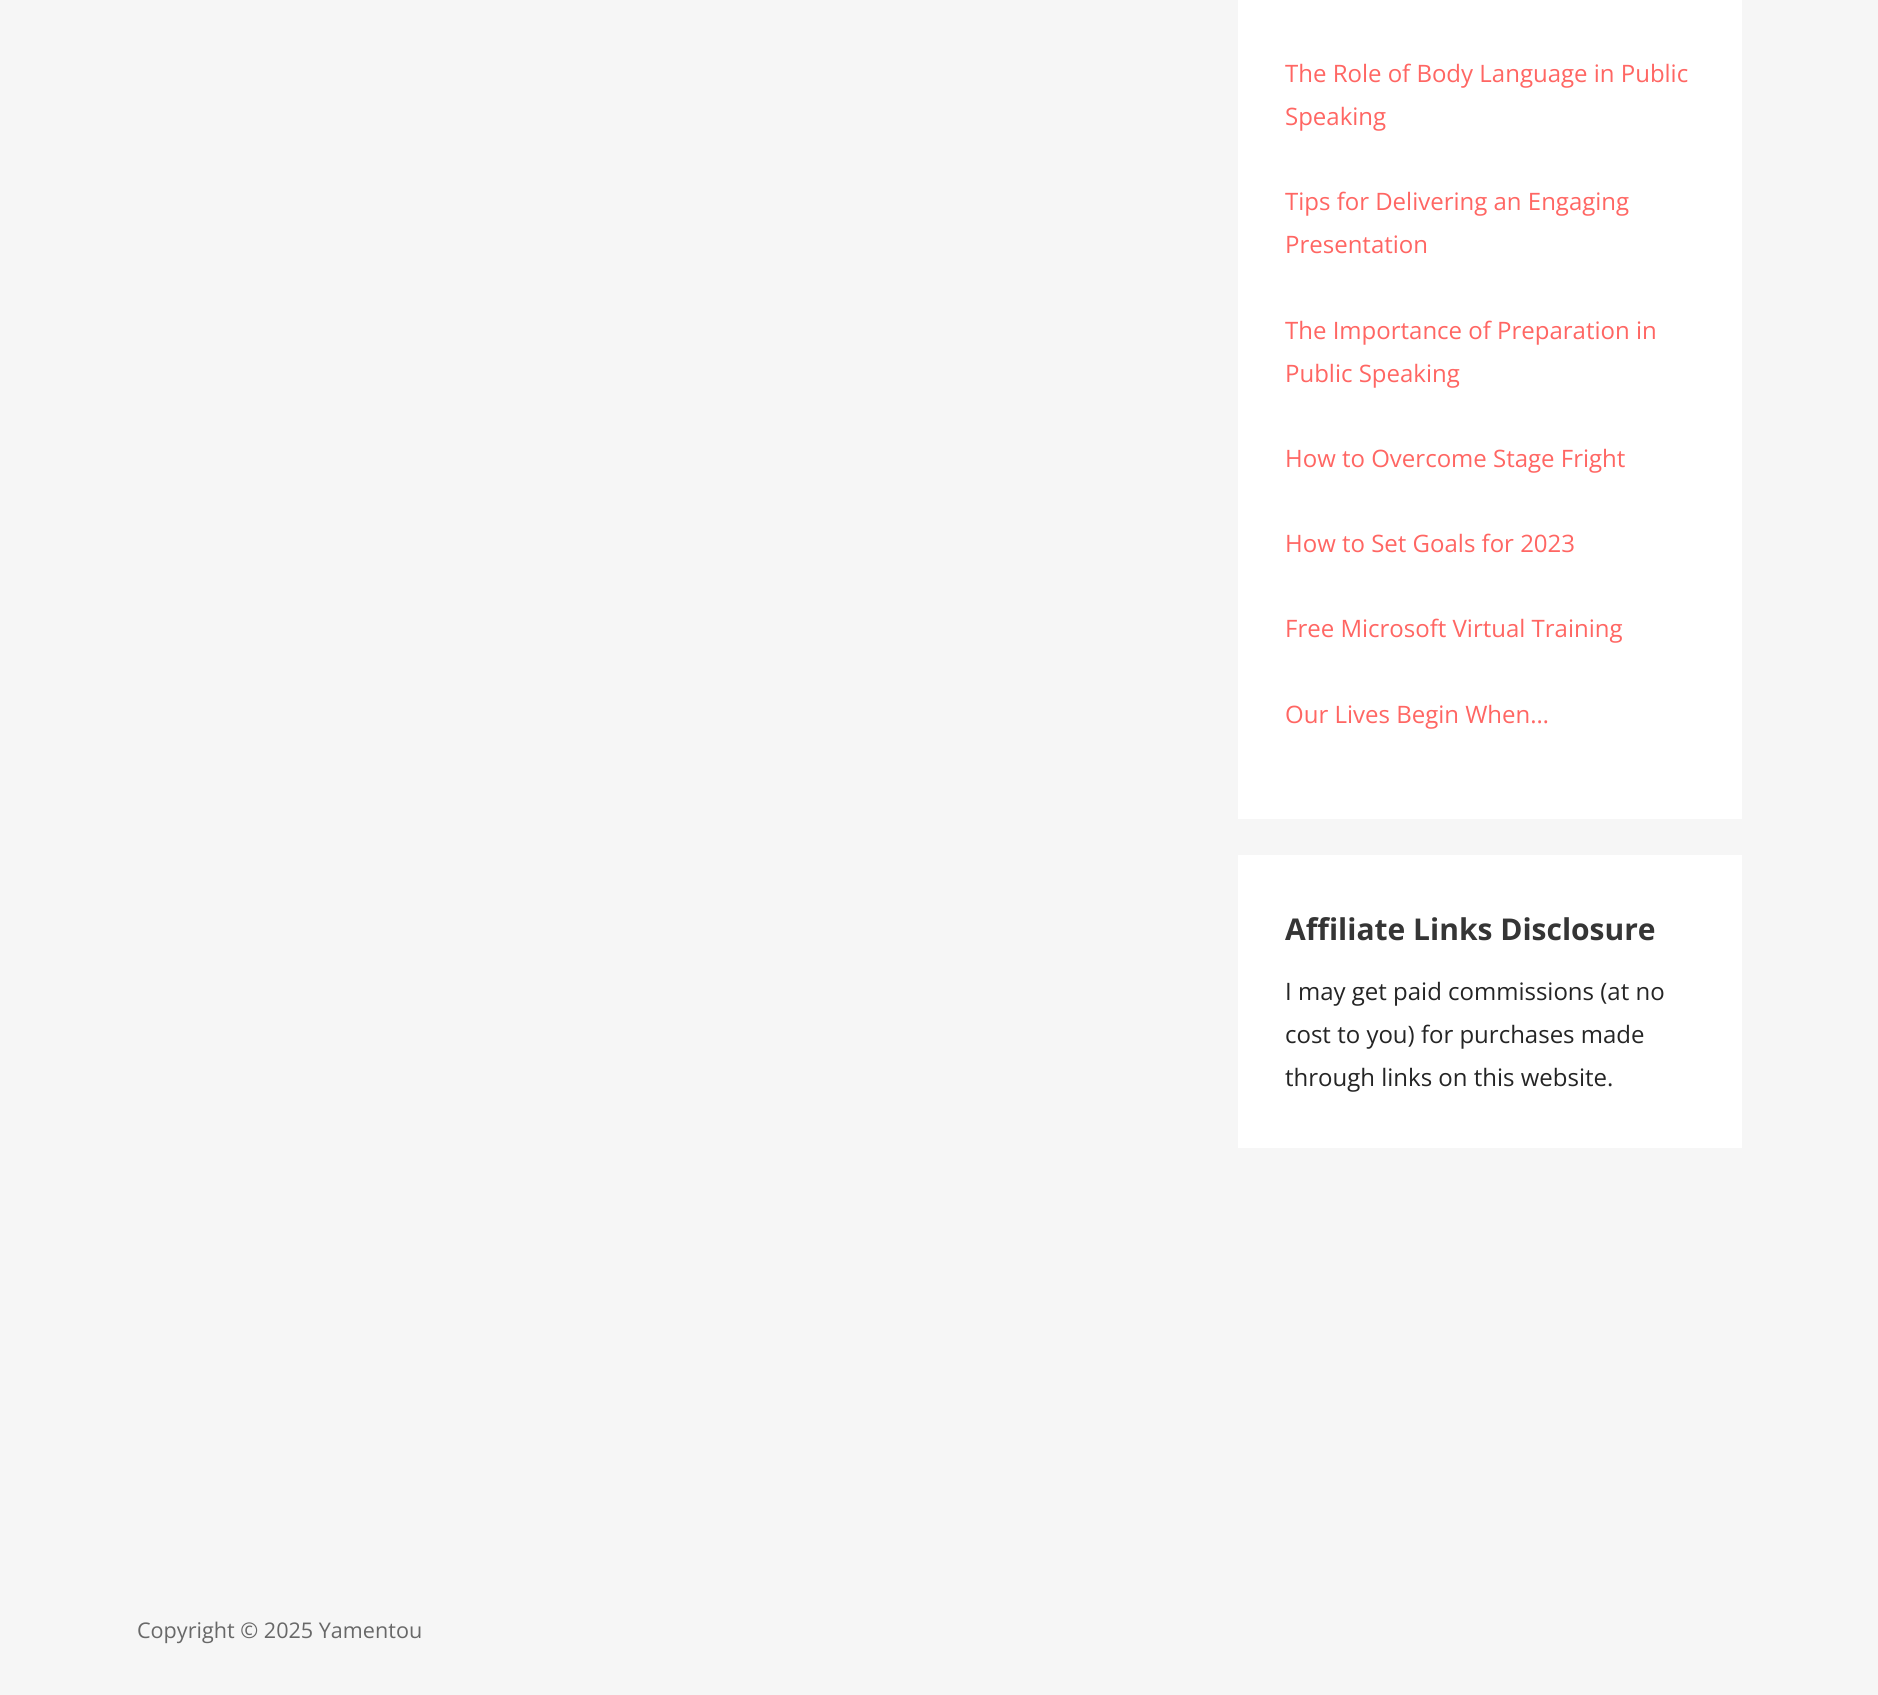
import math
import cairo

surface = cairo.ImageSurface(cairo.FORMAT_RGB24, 1878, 1695)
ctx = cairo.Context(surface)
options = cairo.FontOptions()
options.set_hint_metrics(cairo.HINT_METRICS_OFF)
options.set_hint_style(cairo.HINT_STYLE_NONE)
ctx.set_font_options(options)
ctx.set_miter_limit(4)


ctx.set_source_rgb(0.961, 0.961, 0.961)
ctx.paint()
ctx.set_source_rgb(1, 1, 1)
ctx.rectangle(1238, 0, 504, 819)
ctx.fill()
ctx.select_font_face("Open Sans")
ctx.set_font_size(24)
ctx.set_source_rgb(1, 0.4, 0.388)
ctx.move_to(1285, 82)
ctx.show_text("The Role of Body Language in Public")
ctx.move_to(1285, 125)
ctx.show_text("Speaking")
ctx.move_to(1285, 210)
ctx.show_text("Tips for Delivering an Engaging")
ctx.move_to(1285, 253)
ctx.show_text("Presentation")
ctx.move_to(1285, 339)
ctx.show_text("The Importance of Preparation in")
ctx.move_to(1285, 382)
ctx.show_text("Public Speaking")
ctx.move_to(1285, 467)
ctx.show_text("How to Overcome Stage Fright")
ctx.move_to(1285, 552)
ctx.show_text("How to Set Goals for 2023")
ctx.move_to(1285, 637)
ctx.show_text("Free Microsoft Virtual Training")
ctx.move_to(1285, 723)
ctx.show_text("Our Lives Begin When…")
ctx.set_source_rgb(1, 1, 1)
ctx.rectangle(1238, 855, 504, 293)
ctx.fill()
ctx.select_font_face("Open Sans", cairo.FONT_SLANT_NORMAL, cairo.FONT_WEIGHT_BOLD)
ctx.set_font_size(30)
ctx.set_source_rgb(0.208, 0.208, 0.208)
ctx.move_to(1285, 940)
ctx.show_text("Affiliate Links Disclosure")
ctx.select_font_face("Open Sans")
ctx.set_font_size(24)
ctx.set_source_rgb(0.145, 0.145, 0.145)
ctx.move_to(1285, 1000)
ctx.show_text("I may get paid commissions (at no")
ctx.move_to(1285, 1043)
ctx.show_text("cost to you) for purchases made")
ctx.move_to(1285, 1086)
ctx.show_text("through links on this website.")
ctx.set_font_size(21.6)
ctx.set_source_rgb(0.408, 0.408, 0.408)
ctx.move_to(137, 1638)
ctx.show_text("Copyright © 2025 Yamentou")
surface.write_to_png("page.png")
